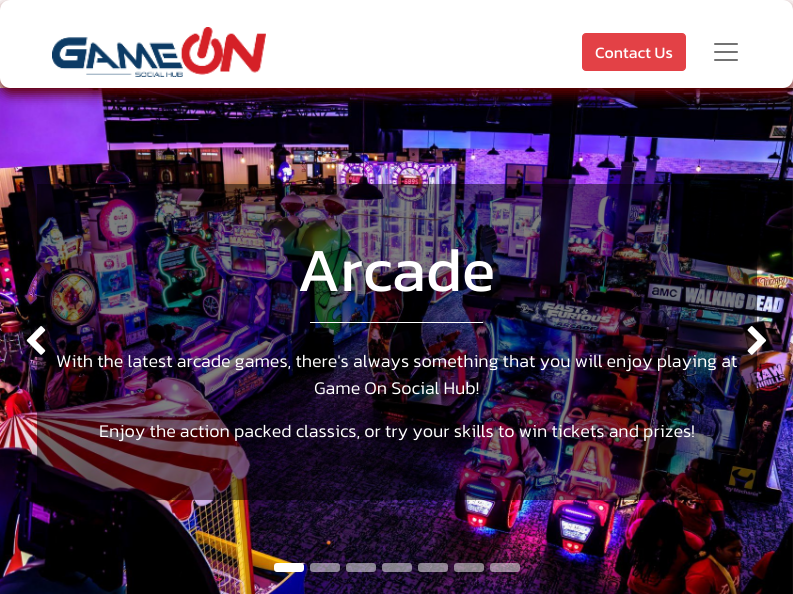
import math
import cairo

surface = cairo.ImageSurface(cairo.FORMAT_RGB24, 793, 594)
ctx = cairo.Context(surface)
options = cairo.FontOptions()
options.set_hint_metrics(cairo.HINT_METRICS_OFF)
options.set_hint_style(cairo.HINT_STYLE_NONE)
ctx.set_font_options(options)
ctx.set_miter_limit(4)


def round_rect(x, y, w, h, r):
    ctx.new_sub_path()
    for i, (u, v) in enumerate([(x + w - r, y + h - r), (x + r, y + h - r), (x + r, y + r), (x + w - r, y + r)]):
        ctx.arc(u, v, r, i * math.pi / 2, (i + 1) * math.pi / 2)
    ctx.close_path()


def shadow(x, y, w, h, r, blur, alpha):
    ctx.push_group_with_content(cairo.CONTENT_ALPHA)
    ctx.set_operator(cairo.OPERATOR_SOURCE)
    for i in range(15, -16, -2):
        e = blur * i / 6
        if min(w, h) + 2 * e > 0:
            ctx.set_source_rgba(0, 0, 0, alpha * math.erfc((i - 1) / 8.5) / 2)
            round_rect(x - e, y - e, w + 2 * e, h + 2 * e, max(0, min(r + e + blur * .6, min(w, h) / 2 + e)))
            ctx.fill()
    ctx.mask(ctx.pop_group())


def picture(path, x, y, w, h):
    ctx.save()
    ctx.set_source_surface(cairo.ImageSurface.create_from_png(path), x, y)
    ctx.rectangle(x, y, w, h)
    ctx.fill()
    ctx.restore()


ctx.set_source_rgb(1, 1, 1)
ctx.paint()
picture("img4.png", 0, 88, 793, 506)
ctx.set_source_rgb(0.388, 0, 0)
shadow(0, 6, 793, 88, 10, 6, 1)
ctx.set_source_rgb(1, 1, 1)
round_rect(0, 0, 793, 88, 10)
ctx.fill()
picture("img1.png", 52, 27, 214, 50)
ctx.set_source_rgb(0.89, 0.255, 0.275)
round_rect(582.5, 33.5, 103, 37, 3.5)
ctx.fill_preserve()
ctx.set_line_width(1)
ctx.stroke()
ctx.select_font_face("Kanit")
ctx.set_font_size(16)
ctx.set_source_rgb(1, 1, 1)
ctx.move_to(595, 58)
ctx.show_text("Contact Us")
picture("img2.png", 714, 43, 24, 18)
ctx.set_source_rgba(0, 0, 0, 0.5)
ctx.rectangle(37, 184, 720, 316)
ctx.fill()
picture("img3.png", 26, 326, 20, 29)
ctx.set_font_size(62)
ctx.set_source_rgb(1, 1, 1)
ctx.move_to(297, 291)
ctx.show_text("Arcade")
ctx.rectangle(310, 322, 173, 1)
ctx.fill()
ctx.select_font_face("Kanit Light")
ctx.set_font_size(18)
ctx.move_to(56, 367)
ctx.show_text("With the latest arcade games, there's always something that you will enjoy playing at")
ctx.move_to(314, 394)
ctx.show_text("Game On Social Hub!")
ctx.move_to(99, 437)
ctx.show_text("Enjoy the action packed classics, or try your skills to win tickets and prizes!")
picture("img5.png", 747, 326, 20, 29)
ctx.set_source_rgb(0, 0, 0)
shadow(274, 565, 30, 9, 3, 2, 0.07)
ctx.set_source_rgb(1, 1, 1)
round_rect(274, 563, 30, 9, 3)
ctx.fill()
ctx.set_source_rgba(1, 1, 1, 0.5)
round_rect(310, 563, 30, 9, 3)
ctx.fill()
round_rect(346, 563, 30, 9, 3)
ctx.fill()
round_rect(382, 563, 30, 9, 3)
ctx.fill()
round_rect(418, 563, 30, 9, 3)
ctx.fill()
round_rect(454, 563, 30, 9, 3)
ctx.fill()
round_rect(490, 563, 30, 9, 3)
ctx.fill()
surface.write_to_png("page.png")
